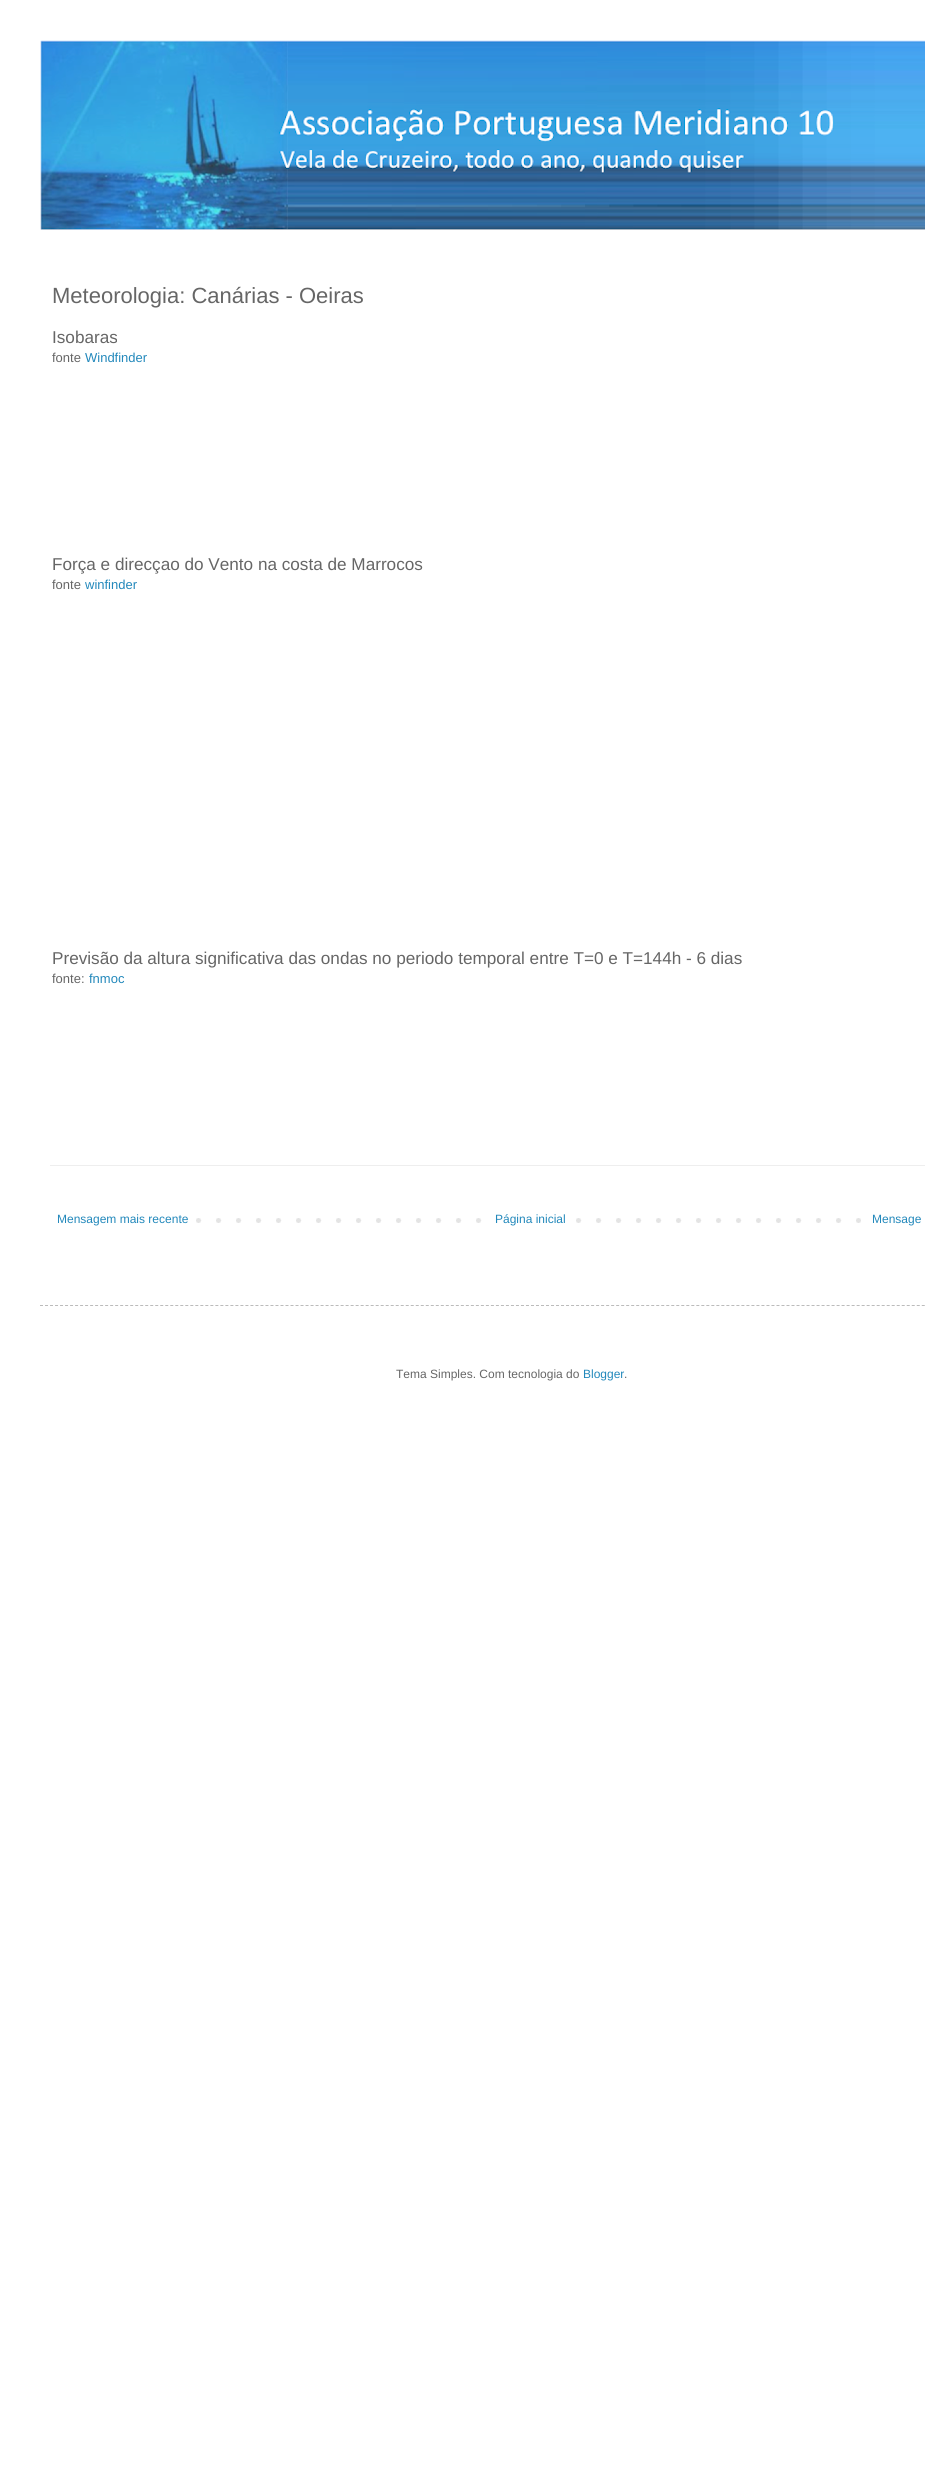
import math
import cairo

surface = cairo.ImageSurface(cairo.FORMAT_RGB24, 925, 2482)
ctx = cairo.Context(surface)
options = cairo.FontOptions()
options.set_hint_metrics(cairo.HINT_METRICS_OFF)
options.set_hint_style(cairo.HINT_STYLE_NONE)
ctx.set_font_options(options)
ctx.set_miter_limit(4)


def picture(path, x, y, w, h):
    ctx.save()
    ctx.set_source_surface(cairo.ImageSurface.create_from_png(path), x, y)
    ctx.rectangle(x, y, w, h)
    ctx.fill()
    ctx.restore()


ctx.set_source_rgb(1, 1, 1)
ctx.paint()
picture("img1.png", 40, 40, 885, 190)
ctx.select_font_face("Liberation Sans")
ctx.set_font_size(22)
ctx.set_source_rgb(0.4, 0.4, 0.4)
ctx.move_to(52, 303)
ctx.show_text("Meteorologia: Canárias - Oeiras")
ctx.set_font_size(17.15)
ctx.move_to(52, 343)
ctx.show_text("Isobaras")
ctx.set_font_size(13)
ctx.move_to(52, 362)
ctx.show_text("fonte")
ctx.set_source_rgb(0.133, 0.533, 0.733)
ctx.move_to(85, 362)
ctx.show_text("Windfinder")
ctx.set_font_size(17.15)
ctx.set_source_rgb(0.4, 0.4, 0.4)
ctx.move_to(52, 570)
ctx.show_text("Força e direcçao do Vento na costa de Marrocos")
ctx.set_font_size(13)
ctx.move_to(52, 589)
ctx.show_text("fonte")
ctx.set_source_rgb(0.133, 0.533, 0.733)
ctx.move_to(85, 589)
ctx.show_text("winfinder")
ctx.set_font_size(17.15)
ctx.set_source_rgb(0.4, 0.4, 0.4)
ctx.move_to(52, 964)
ctx.show_text("Previsão da altura significativa das ondas no periodo temporal entre T=0 e T=144h - 6 dias")
ctx.set_font_size(13)
ctx.move_to(52, 983)
ctx.show_text("fonte:")
ctx.set_source_rgb(0.133, 0.533, 0.733)
ctx.move_to(89, 983)
ctx.show_text("fnmoc")
ctx.set_source_rgb(0.933, 0.933, 0.933)
ctx.rectangle(50, 1165, 875, 1)
ctx.fill()
picture("img2.png", 196, 1218, 665, 5)
ctx.set_font_size(12)
ctx.set_source_rgb(0.133, 0.533, 0.733)
ctx.move_to(57, 1223)
ctx.show_text("Mensagem mais recente")
ctx.set_source_rgb(1, 1, 1)
ctx.rectangle(496, 1218, 66, 5)
ctx.fill()
ctx.set_source_rgb(0.133, 0.533, 0.733)
ctx.move_to(495, 1223)
ctx.show_text("Página inicial")
ctx.move_to(872, 1223)
ctx.show_text("Mensage")
ctx.new_path()
ctx.move_to(40, 1305.5)
ctx.line_to(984, 1305.5)
ctx.set_source_rgb(0.733, 0.733, 0.733)
ctx.set_line_width(1)
ctx.set_dash([3, 2.01])
ctx.stroke()
ctx.set_source_rgb(0.4, 0.4, 0.4)
ctx.move_to(396, 1378)
ctx.show_text("Tema Simples. Com tecnologia do")
ctx.set_source_rgb(0.133, 0.533, 0.733)
ctx.move_to(583, 1378)
ctx.show_text("Blogger")
ctx.set_source_rgb(0.4, 0.4, 0.4)
ctx.move_to(624, 1378)
ctx.show_text(".")
surface.write_to_png("page.png")
